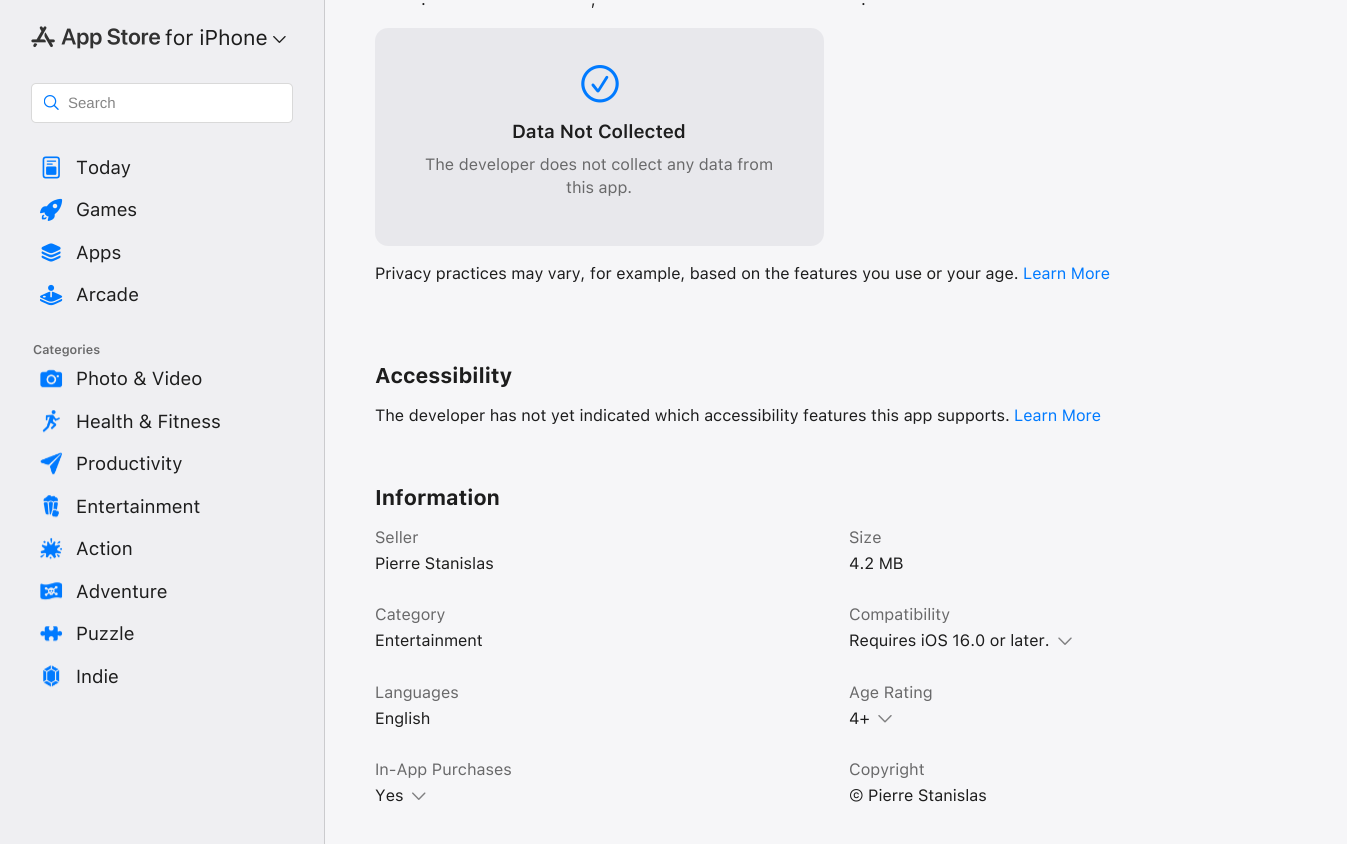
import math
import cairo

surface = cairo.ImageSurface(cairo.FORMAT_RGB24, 1347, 844)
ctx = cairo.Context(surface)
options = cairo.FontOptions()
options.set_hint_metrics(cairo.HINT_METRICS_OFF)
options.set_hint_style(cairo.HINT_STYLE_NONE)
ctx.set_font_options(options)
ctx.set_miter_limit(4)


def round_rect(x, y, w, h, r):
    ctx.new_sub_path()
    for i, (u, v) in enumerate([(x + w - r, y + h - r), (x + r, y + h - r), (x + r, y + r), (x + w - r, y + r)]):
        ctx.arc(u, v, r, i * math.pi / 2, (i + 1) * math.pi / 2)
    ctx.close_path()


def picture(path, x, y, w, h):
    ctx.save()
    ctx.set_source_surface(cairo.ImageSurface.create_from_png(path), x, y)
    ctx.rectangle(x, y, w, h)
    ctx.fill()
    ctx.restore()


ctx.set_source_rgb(0.961, 0.961, 0.969)
ctx.paint()
ctx.set_source_rgb(0.937, 0.937, 0.949)
ctx.rectangle(0, 0, 324, 844)
ctx.fill()
ctx.set_source_rgb(0.796, 0.796, 0.808)
ctx.rectangle(324, 0, 1, 844)
ctx.fill()
picture("img1.png", 31, 26, 129, 23)
ctx.select_font_face("SF")
ctx.set_font_size(21.25)
ctx.set_source_rgb(0.114, 0.114, 0.114)
ctx.move_to(165, 45)
ctx.show_text("for iPhone")
picture("img2.png", 273, 36, 13, 7)
ctx.set_source_rgb(1, 1, 1)
round_rect(31, 83, 262, 40, 5)
ctx.fill()
round_rect(31.5, 83.5, 261, 39, 4.5)
ctx.set_source_rgba(0, 0, 0, 0.15)
ctx.set_line_width(1)
ctx.stroke()
picture("img3.png", 44, 95, 15, 15)
ctx.select_font_face("Liberation Sans")
ctx.set_font_size(15)
ctx.set_source_rgb(0.522, 0.522, 0.522)
ctx.move_to(68, 108)
ctx.show_text("Search")
picture("img4.png", 42, 156, 18, 23)
ctx.select_font_face("SF")
ctx.set_font_size(18.75)
ctx.set_source_rgb(0.114, 0.114, 0.114)
ctx.move_to(76, 174)
ctx.show_text("Today")
picture("img5.png", 40, 198, 23, 23)
ctx.move_to(76, 216)
ctx.show_text("Games")
picture("img6.png", 41, 243, 20, 19)
ctx.move_to(76, 259)
ctx.show_text("Apps")
picture("img7.png", 40, 284, 23, 22)
ctx.move_to(76, 301)
ctx.show_text("Arcade")
ctx.select_font_face("SF SemiBold")
ctx.set_font_size(12.5)
ctx.set_source_rgb(0.412, 0.412, 0.416)
ctx.move_to(33, 354)
ctx.show_text("Categories")
picture("img8.png", 40, 369, 23, 19)
ctx.select_font_face("SF")
ctx.set_font_size(18.75)
ctx.set_source_rgb(0.114, 0.114, 0.114)
ctx.move_to(76, 385)
ctx.show_text("Photo & Video")
picture("img9.png", 42, 410, 18, 23)
ctx.move_to(76, 428)
ctx.show_text("Health & Fitness")
picture("img10.png", 40, 452, 22, 23)
ctx.move_to(76, 470)
ctx.show_text("Productivity")
picture("img11.png", 43, 495, 16, 23)
ctx.move_to(76, 513)
ctx.show_text("Entertainment")
picture("img12.png", 40, 537, 22, 23)
ctx.move_to(76, 555)
ctx.show_text("Action")
picture("img13.png", 40, 582, 23, 19)
ctx.move_to(76, 598)
ctx.show_text("Adventure")
picture("img14.png", 40, 626, 23, 16)
ctx.move_to(76, 640)
ctx.show_text("Puzzle")
picture("img15.png", 43, 665, 17, 23)
ctx.move_to(76, 683)
ctx.show_text("Indie")
ctx.set_font_size(16.25)
ctx.move_to(421, 5)
ctx.show_text(".")
ctx.move_to(591, 5)
ctx.show_text(",")
ctx.move_to(861, 5)
ctx.show_text(".")
ctx.set_source_rgb(0.91, 0.91, 0.922)
round_rect(375, 28, 449, 218, 13)
ctx.fill()
picture("img16.png", 581, 65, 38, 38)
ctx.select_font_face("SF SemiBold")
ctx.set_font_size(18.75)
ctx.set_source_rgb(0.114, 0.114, 0.114)
ctx.move_to(512, 138)
ctx.show_text("Data Not Collected")
ctx.select_font_face("SF")
ctx.set_font_size(16.25)
ctx.set_source_rgb(0.412, 0.412, 0.416)
ctx.move_to(425, 170)
ctx.show_text("The developer does not collect any data from")
ctx.move_to(566, 193)
ctx.show_text("this app.")
ctx.set_source_rgb(0.114, 0.114, 0.114)
ctx.move_to(375, 279)
ctx.show_text("Privacy practices may vary, for example, based on the features you use or your age.")
ctx.set_source_rgb(0, 0.478, 1)
ctx.move_to(1023, 279)
ctx.show_text("Learn More")
ctx.select_font_face("SF", cairo.FONT_SLANT_NORMAL, cairo.FONT_WEIGHT_BOLD)
ctx.set_font_size(21.25)
ctx.set_source_rgb(0.114, 0.114, 0.114)
ctx.move_to(375, 383)
ctx.show_text("Accessibility")
ctx.select_font_face("SF")
ctx.set_font_size(16.25)
ctx.move_to(375, 421)
ctx.show_text("The developer has not yet indicated which accessibility features this app supports.")
ctx.set_source_rgb(0, 0.478, 1)
ctx.move_to(1014, 421)
ctx.show_text("Learn More")
ctx.select_font_face("SF", cairo.FONT_SLANT_NORMAL, cairo.FONT_WEIGHT_BOLD)
ctx.set_font_size(21.25)
ctx.set_source_rgb(0.114, 0.114, 0.114)
ctx.move_to(375, 505)
ctx.show_text("Information")
ctx.select_font_face("SF")
ctx.set_font_size(16.25)
ctx.set_source_rgb(0.412, 0.412, 0.416)
ctx.move_to(375, 543)
ctx.show_text("Seller")
ctx.set_source_rgb(0.114, 0.114, 0.114)
ctx.move_to(375, 569)
ctx.show_text("Pierre Stanislas")
ctx.set_source_rgb(0.412, 0.412, 0.416)
ctx.move_to(849, 543)
ctx.show_text("Size")
ctx.set_source_rgb(0.114, 0.114, 0.114)
ctx.move_to(849, 569)
ctx.show_text("4.2 MB")
ctx.set_source_rgb(0.412, 0.412, 0.416)
ctx.move_to(375, 620)
ctx.show_text("Category")
ctx.set_source_rgb(0.114, 0.114, 0.114)
ctx.move_to(375, 646)
ctx.show_text("Entertainment")
ctx.set_source_rgb(0.412, 0.412, 0.416)
ctx.move_to(849, 620)
ctx.show_text("Compatibility")
ctx.set_source_rgb(0.114, 0.114, 0.114)
ctx.move_to(849, 646)
ctx.show_text("Requires iOS 16.0 or later.")
picture("img17.png", 1058, 637, 14, 8)
ctx.set_source_rgb(0.412, 0.412, 0.416)
ctx.move_to(375, 698)
ctx.show_text("Languages")
ctx.set_source_rgb(0.114, 0.114, 0.114)
ctx.move_to(375, 724)
ctx.show_text("English")
ctx.set_source_rgb(0.412, 0.412, 0.416)
ctx.move_to(849, 698)
ctx.show_text("Age Rating")
ctx.set_source_rgb(0.114, 0.114, 0.114)
ctx.move_to(849, 724)
ctx.show_text("4+")
picture("img18.png", 878, 715, 14, 8)
ctx.set_source_rgb(0.412, 0.412, 0.416)
ctx.move_to(375, 775)
ctx.show_text("In-App Purchases")
ctx.set_source_rgb(0.114, 0.114, 0.114)
ctx.move_to(375, 801)
ctx.show_text("Yes")
picture("img19.png", 412, 792, 14, 8)
ctx.set_source_rgb(0.412, 0.412, 0.416)
ctx.move_to(849, 775)
ctx.show_text("Copyright")
ctx.set_source_rgb(0.114, 0.114, 0.114)
ctx.move_to(849, 801)
ctx.show_text("© Pierre Stanislas")
surface.write_to_png("page.png")
